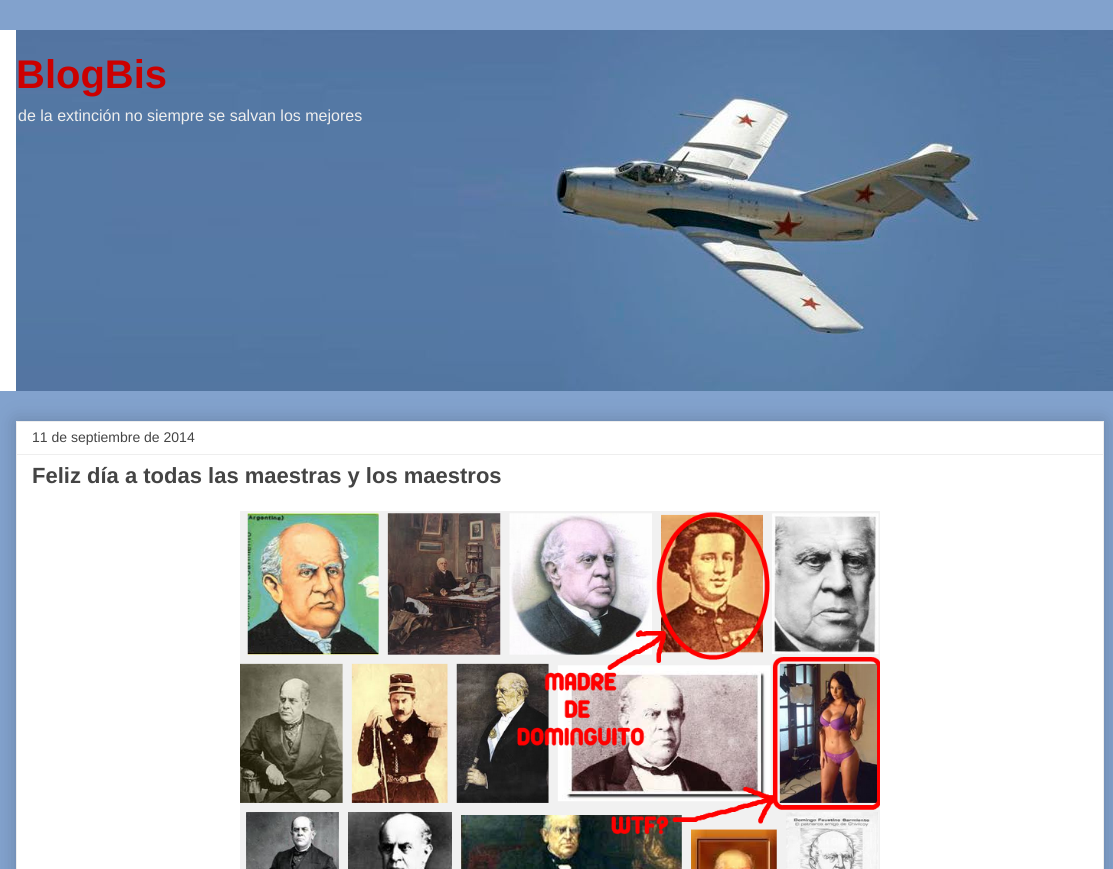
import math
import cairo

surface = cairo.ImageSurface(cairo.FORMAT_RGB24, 1113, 869)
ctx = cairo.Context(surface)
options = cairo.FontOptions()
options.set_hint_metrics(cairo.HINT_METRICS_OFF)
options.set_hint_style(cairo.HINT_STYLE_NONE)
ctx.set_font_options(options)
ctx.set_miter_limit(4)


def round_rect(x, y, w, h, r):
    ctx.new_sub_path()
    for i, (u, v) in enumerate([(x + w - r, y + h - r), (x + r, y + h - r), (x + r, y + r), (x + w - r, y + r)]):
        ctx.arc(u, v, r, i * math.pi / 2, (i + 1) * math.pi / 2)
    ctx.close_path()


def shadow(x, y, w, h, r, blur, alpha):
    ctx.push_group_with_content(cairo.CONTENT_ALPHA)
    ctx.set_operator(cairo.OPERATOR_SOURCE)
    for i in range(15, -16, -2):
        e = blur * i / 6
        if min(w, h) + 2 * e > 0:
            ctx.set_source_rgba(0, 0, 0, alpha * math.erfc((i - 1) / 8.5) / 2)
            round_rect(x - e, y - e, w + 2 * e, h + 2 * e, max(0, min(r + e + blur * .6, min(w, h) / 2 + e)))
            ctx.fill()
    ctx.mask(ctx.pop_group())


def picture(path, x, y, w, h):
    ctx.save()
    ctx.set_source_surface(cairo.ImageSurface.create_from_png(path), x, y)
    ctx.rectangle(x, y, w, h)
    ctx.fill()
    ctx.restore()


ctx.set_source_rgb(0.51, 0.635, 0.804)
ctx.paint()
ctx.set_source_rgb(1, 1, 1)
ctx.rectangle(0, 30, 16, 361)
ctx.fill()
picture("img1.png", 16, 30, 1097, 361)
ctx.select_font_face("Liberation Sans", cairo.FONT_SLANT_NORMAL, cairo.FONT_WEIGHT_BOLD)
ctx.set_font_size(40)
ctx.set_source_rgb(0.8, 0, 0)
ctx.move_to(16, 88)
ctx.show_text("BlogBis")
ctx.select_font_face("Liberation Sans")
ctx.set_font_size(16)
ctx.set_source_rgb(0.933, 0.933, 0.933)
ctx.move_to(18, 121)
ctx.show_text("de la extinción no siempre se salvan los mejores")
ctx.set_source_rgb(0, 0, 0)
shadow(16, 421, 1088, 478, 0, 10, 0.2)
ctx.set_source_rgb(1, 1, 1)
ctx.rectangle(16.5, 421.5, 1087, 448)
ctx.fill_preserve()
ctx.set_source_rgb(0.933, 0.933, 0.933)
ctx.set_line_width(1)
ctx.stroke()
ctx.set_font_size(14)
ctx.set_source_rgb(0.267, 0.267, 0.267)
ctx.move_to(32, 442)
ctx.show_text("11 de septiembre de 2014")
ctx.set_source_rgb(0.933, 0.933, 0.933)
ctx.rectangle(17, 454, 1086, 1)
ctx.fill()
ctx.select_font_face("Liberation Sans", cairo.FONT_SLANT_NORMAL, cairo.FONT_WEIGHT_BOLD)
ctx.set_font_size(22)
ctx.set_source_rgb(0.267, 0.267, 0.267)
ctx.move_to(32, 483)
ctx.show_text("Feliz día a todas las maestras y los maestros")
picture("img2.png", 240, 511, 640, 358)
surface.write_to_png("page.png")
